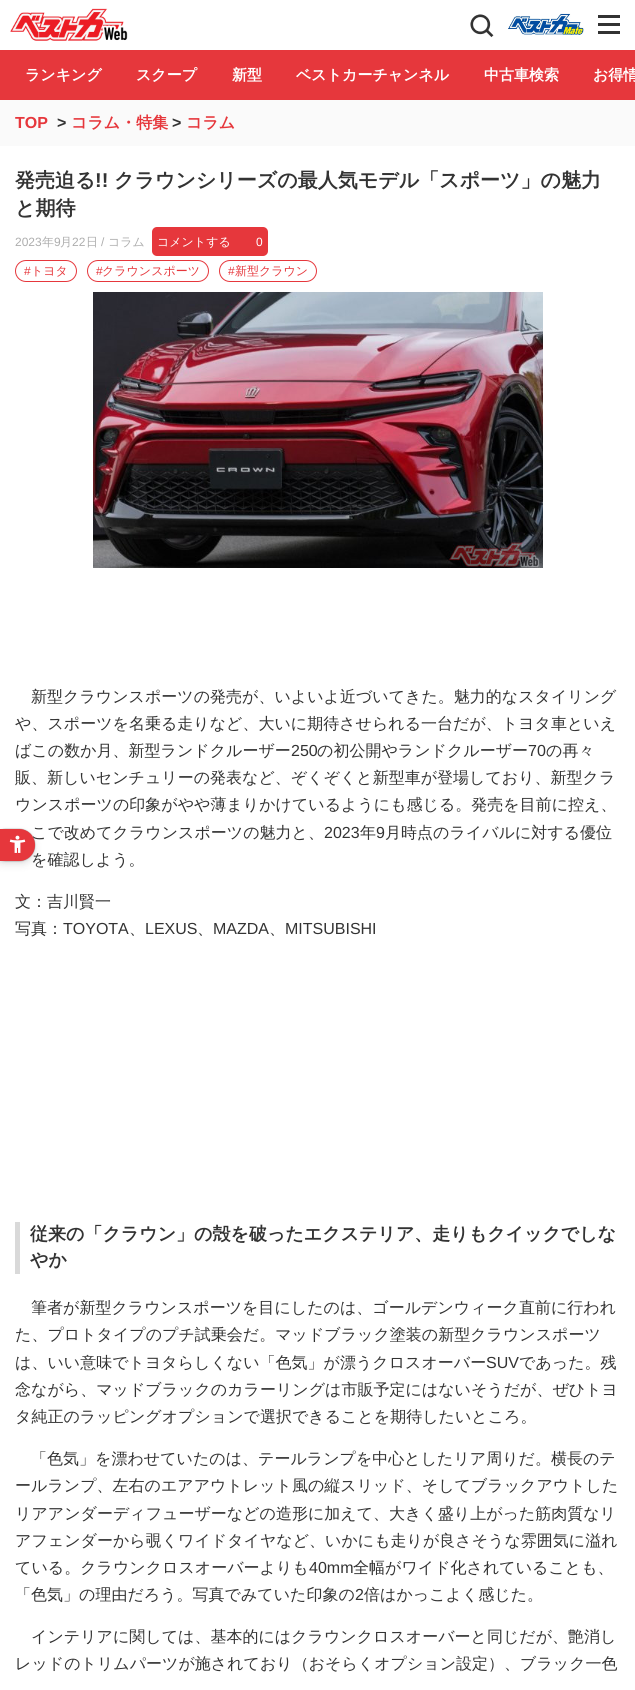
import math
import cairo

surface = cairo.ImageSurface(cairo.FORMAT_RGB24, 635, 1690)
ctx = cairo.Context(surface)
options = cairo.FontOptions()
options.set_hint_metrics(cairo.HINT_METRICS_OFF)
options.set_hint_style(cairo.HINT_STYLE_NONE)
ctx.set_font_options(options)
ctx.set_miter_limit(4)


def round_rect(x, y, w, h, r):
    ctx.new_sub_path()
    for i, (u, v) in enumerate([(x + w - r, y + h - r), (x + r, y + h - r), (x + r, y + r), (x + w - r, y + r)]):
        ctx.arc(u, v, r, i * math.pi / 2, (i + 1) * math.pi / 2)
    ctx.close_path()


def shadow(x, y, w, h, r, blur, alpha):
    ctx.push_group_with_content(cairo.CONTENT_ALPHA)
    ctx.set_operator(cairo.OPERATOR_SOURCE)
    for i in range(15, -16, -2):
        e = blur * i / 6
        if min(w, h) + 2 * e > 0:
            ctx.set_source_rgba(0, 0, 0, alpha * math.erfc((i - 1) / 8.5) / 2)
            round_rect(x - e, y - e, w + 2 * e, h + 2 * e, max(0, min(r + e + blur * .6, min(w, h) / 2 + e)))
            ctx.fill()
    ctx.mask(ctx.pop_group())


def picture(path, x, y, w, h):
    ctx.save()
    ctx.set_source_surface(cairo.ImageSurface.create_from_png(path), x, y)
    ctx.rectangle(x, y, w, h)
    ctx.fill()
    ctx.restore()


ctx.set_source_rgb(0.98, 0.98, 0.98)
ctx.paint()
ctx.set_source_rgb(1, 1, 1)
ctx.rectangle(0, 0, 635, 50)
ctx.fill()
picture("img1.png", 10, 8, 118, 33)
picture("img2.png", 470, 14, 24, 24)
picture("img3.png", 508, 13, 76, 22)
ctx.set_source_rgb(0.196, 0.196, 0.196)
ctx.rectangle(598, 15, 22, 3)
ctx.fill()
ctx.rectangle(598, 23, 22, 3)
ctx.fill()
ctx.rectangle(598, 31, 22, 3)
ctx.fill()
ctx.set_source_rgb(0.902, 0.216, 0.235)
ctx.rectangle(0, 50, 635, 50)
ctx.fill()
ctx.select_font_face("WenQuanYi Zen Hei", cairo.FONT_SLANT_NORMAL, cairo.FONT_WEIGHT_BOLD)
ctx.set_font_size(15)
ctx.set_source_rgb(1, 1, 1)
ctx.move_to(25, 80)
ctx.show_text("ランキング")
ctx.move_to(136, 80)
ctx.show_text("スクープ")
ctx.move_to(232, 80)
ctx.show_text("新型")
ctx.move_to(296, 80)
ctx.show_text("ベストカーチャンネル")
ctx.move_to(484, 80)
ctx.show_text("中古車検索")
ctx.move_to(593, 80)
ctx.show_text("お得情")
ctx.select_font_face("Liberation Sans", cairo.FONT_SLANT_NORMAL, cairo.FONT_WEIGHT_BOLD)
ctx.set_font_size(16)
ctx.set_source_rgb(0.902, 0.216, 0.235)
ctx.move_to(15, 128)
ctx.show_text("TOP")
ctx.set_source_rgb(0.2, 0.2, 0.2)
ctx.move_to(57, 128)
ctx.show_text(">")
ctx.select_font_face("WenQuanYi Zen Hei", cairo.FONT_SLANT_NORMAL, cairo.FONT_WEIGHT_BOLD)
ctx.set_source_rgb(0.902, 0.216, 0.235)
ctx.move_to(71, 128)
ctx.show_text("コラム・特集")
ctx.select_font_face("Liberation Sans", cairo.FONT_SLANT_NORMAL, cairo.FONT_WEIGHT_BOLD)
ctx.set_source_rgb(0.2, 0.2, 0.2)
ctx.move_to(172, 128)
ctx.show_text(">")
ctx.select_font_face("WenQuanYi Zen Hei", cairo.FONT_SLANT_NORMAL, cairo.FONT_WEIGHT_BOLD)
ctx.set_source_rgb(0.902, 0.216, 0.235)
ctx.move_to(186, 128)
ctx.show_text("コラム")
ctx.set_source_rgb(1, 1, 1)
ctx.rectangle(0, 146, 635, 1544)
ctx.fill()
ctx.set_font_size(20)
ctx.set_source_rgb(0.2, 0.2, 0.2)
ctx.move_to(15, 187)
ctx.show_text("発売迫る")
ctx.select_font_face("Liberation Sans", cairo.FONT_SLANT_NORMAL, cairo.FONT_WEIGHT_BOLD)
ctx.move_to(95, 187)
ctx.show_text("!!")
ctx.select_font_face("WenQuanYi Zen Hei", cairo.FONT_SLANT_NORMAL, cairo.FONT_WEIGHT_BOLD)
ctx.move_to(114, 187)
ctx.show_text("クラウンシリーズの最人気モデル「スポーツ」の魅力")
ctx.move_to(15, 215)
ctx.show_text("と期待")
ctx.select_font_face("Liberation Sans")
ctx.set_font_size(12)
ctx.set_source_rgb(0.678, 0.678, 0.678)
ctx.move_to(15, 246)
ctx.show_text("2023")
ctx.select_font_face("WenQuanYi Zen Hei Medium")
ctx.move_to(42, 246)
ctx.show_text("年")
ctx.select_font_face("Liberation Sans")
ctx.move_to(54, 246)
ctx.show_text("9")
ctx.select_font_face("WenQuanYi Zen Hei Medium")
ctx.move_to(60, 246)
ctx.show_text("月")
ctx.select_font_face("Liberation Sans")
ctx.move_to(72, 246)
ctx.show_text("22")
ctx.select_font_face("WenQuanYi Zen Hei Medium")
ctx.move_to(86, 246)
ctx.show_text("日")
ctx.select_font_face("Liberation Sans")
ctx.move_to(101, 246)
ctx.show_text("/")
ctx.select_font_face("WenQuanYi Zen Hei Medium")
ctx.move_to(108, 246)
ctx.show_text("コラム")
ctx.set_source_rgb(0.902, 0.216, 0.235)
round_rect(152, 227, 116, 29, 5)
ctx.fill()
ctx.set_source_rgb(1, 1, 1)
ctx.move_to(157, 246)
ctx.show_text("コメントする")
ctx.select_font_face("Liberation Sans")
ctx.move_to(256, 246)
ctx.show_text("0")
round_rect(15.5, 260.5, 61, 21, 10.5)
ctx.set_source_rgb(0.902, 0.216, 0.235)
ctx.set_line_width(1)
ctx.stroke()
ctx.move_to(24, 275)
ctx.show_text("#")
ctx.select_font_face("WenQuanYi Zen Hei Medium")
ctx.move_to(31, 275)
ctx.show_text("トヨタ")
round_rect(87.5, 260.5, 121, 21, 10.5)
ctx.stroke()
ctx.select_font_face("Liberation Sans")
ctx.move_to(96, 275)
ctx.show_text("#")
ctx.select_font_face("WenQuanYi Zen Hei Medium")
ctx.move_to(102, 275)
ctx.show_text("クラウンスポーツ")
round_rect(219.5, 260.5, 97, 21, 10.5)
ctx.stroke()
ctx.select_font_face("Liberation Sans")
ctx.move_to(228, 275)
ctx.show_text("#")
ctx.select_font_face("WenQuanYi Zen Hei Medium")
ctx.move_to(235, 275)
ctx.show_text("新型クラウン")
picture("img4.png", 93, 292, 450, 276)
ctx.set_font_size(16)
ctx.set_source_rgb(0.2, 0.2, 0.2)
ctx.move_to(31, 702)
ctx.show_text("新型クラウンスポーツの発売が、いよいよ近づいてきた。魅力的なスタイリング")
ctx.move_to(15, 729)
ctx.show_text("や、スポーツを名乗る走りなど、大いに期待させられる一台だが、トヨタ車といえ")
ctx.move_to(15, 756)
ctx.show_text("ばこの数か月、新型ランドクルーザー")
ctx.select_font_face("Liberation Sans")
ctx.move_to(291, 756)
ctx.show_text("250")
ctx.select_font_face("WenQuanYi Zen Hei Medium")
ctx.move_to(317, 756)
ctx.show_text("の初公開やランドクルーザー")
ctx.select_font_face("Liberation Sans")
ctx.move_to(528, 756)
ctx.show_text("70")
ctx.select_font_face("WenQuanYi Zen Hei Medium")
ctx.move_to(546, 756)
ctx.show_text("の再々")
ctx.move_to(15, 783)
ctx.show_text("販、新しいセンチュリーの発表など、ぞくぞくと新型車が登場しており、新型クラ")
ctx.move_to(15, 810)
ctx.show_text("ウンスポーツの印象がやや薄まりかけているようにも感じる。発売を目前に控え、")
ctx.move_to(31, 838)
ctx.show_text("こで改めてクラウンスポーツの魅力と、")
ctx.select_font_face("Liberation Sans")
ctx.move_to(324, 838)
ctx.show_text("2023")
ctx.select_font_face("WenQuanYi Zen Hei Medium")
ctx.move_to(360, 838)
ctx.show_text("年")
ctx.select_font_face("Liberation Sans")
ctx.move_to(376, 838)
ctx.show_text("9")
ctx.select_font_face("WenQuanYi Zen Hei Medium")
ctx.move_to(385, 838)
ctx.show_text("月時点のライバルに対する優位")
ctx.move_to(31, 865)
ctx.show_text("を確認しよう。")
ctx.move_to(15, 907)
ctx.show_text("文：吉川賢一")
ctx.move_to(15, 934)
ctx.show_text("写真：")
ctx.select_font_face("Liberation Sans")
ctx.move_to(63, 934)
ctx.show_text("TOYOTA")
ctx.select_font_face("WenQuanYi Zen Hei Medium")
ctx.move_to(129, 934)
ctx.show_text("、")
ctx.select_font_face("Liberation Sans")
ctx.move_to(145, 934)
ctx.show_text("LEXUS")
ctx.select_font_face("WenQuanYi Zen Hei Medium")
ctx.move_to(197, 934)
ctx.show_text("、")
ctx.select_font_face("Liberation Sans")
ctx.move_to(213, 934)
ctx.show_text("MAZDA")
ctx.select_font_face("WenQuanYi Zen Hei Medium")
ctx.move_to(269, 934)
ctx.show_text("、")
ctx.select_font_face("Liberation Sans")
ctx.move_to(285, 934)
ctx.show_text("MITSUBISHI")
ctx.set_source_rgb(0.851, 0.851, 0.851)
ctx.rectangle(15, 1222, 5, 52)
ctx.fill()
ctx.select_font_face("WenQuanYi Zen Hei", cairo.FONT_SLANT_NORMAL, cairo.FONT_WEIGHT_BOLD)
ctx.set_font_size(18)
ctx.set_source_rgb(0.2, 0.2, 0.2)
ctx.move_to(30, 1240)
ctx.show_text("従来の「クラウン」の殻を破ったエクステリア、走りもクイックでしな")
ctx.move_to(30, 1266)
ctx.show_text("やか")
ctx.select_font_face("WenQuanYi Zen Hei Medium")
ctx.set_font_size(16)
ctx.move_to(31, 1313)
ctx.show_text("筆者が新型クラウンスポーツを目にしたのは、ゴールデンウィーク直前に行われ")
ctx.move_to(15, 1340)
ctx.show_text("た、プロトタイプのプチ試乗会だ。マッドブラック塗装の新型クラウンスポーツ")
ctx.move_to(15, 1368)
ctx.show_text("は、いい意味でトヨタらしくない「色気」が漂うクロスオーバー")
ctx.select_font_face("Liberation Sans")
ctx.move_to(486, 1368)
ctx.show_text("SUV")
ctx.select_font_face("WenQuanYi Zen Hei Medium")
ctx.move_to(519, 1368)
ctx.show_text("であった。残")
ctx.move_to(15, 1395)
ctx.show_text("念ながら、マッドブラックのカラーリングは市販予定にはないそうだが、ぜひトヨ")
ctx.move_to(15, 1422)
ctx.show_text("タ純正のラッピングオプションで選択できることを期待したいところ。")
ctx.move_to(31, 1464)
ctx.show_text("「色気」を漂わせていたのは、テールランプを中心としたリア周りだ。横長のテ")
ctx.move_to(15, 1491)
ctx.show_text("ールランプ、左右のエアアウトレット風の縦スリッド、そしてブラックアウトした")
ctx.move_to(15, 1519)
ctx.show_text("リアアンダーディフューザーなどの造形に加えて、大きく盛り上がった筋肉質なリ")
ctx.move_to(15, 1546)
ctx.show_text("アフェンダーから覗くワイドタイヤなど、いかにも走りが良さそうな雰囲気に溢れ")
ctx.move_to(15, 1573)
ctx.show_text("ている。クラウンクロスオーバーよりも")
ctx.select_font_face("Liberation Sans")
ctx.move_to(309, 1573)
ctx.show_text("40mm")
ctx.select_font_face("WenQuanYi Zen Hei Medium")
ctx.move_to(353, 1573)
ctx.show_text("全幅がワイド化されていることも、")
ctx.move_to(15, 1600)
ctx.show_text("「色気」の理由だろう。写真でみていた印象の")
ctx.select_font_face("Liberation Sans")
ctx.move_to(355, 1600)
ctx.show_text("2")
ctx.select_font_face("WenQuanYi Zen Hei Medium")
ctx.move_to(364, 1600)
ctx.show_text("倍はかっこよく感じた。")
ctx.move_to(31, 1642)
ctx.show_text("インテリアに関しては、基本的にはクラウンクロスオーバーと同じだが、艶消し")
ctx.move_to(15, 1669)
ctx.show_text("レッドのトリムパーツが施されており（おそらくオプション設定）、ブラック一色")
ctx.set_source_rgb(0, 0, 0)
shadow(-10, 833, 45, 32, 16, 4, 0.09)
shadow(-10, 830, 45, 32, 16, 1.5, 0.09)
shadow(-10, 829, 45, 32, 16, 0.5, 0.4)
ctx.set_source_rgb(0.902, 0.216, 0.235)
ctx.new_path()
ctx.move_to(-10, 829)
ctx.line_to(19, 829)
ctx.curve_to(28, 829, 35, 836, 35, 845)
ctx.curve_to(35, 854, 28, 861, 19, 861)
ctx.line_to(-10, 861)
ctx.close_path()
ctx.fill()
picture("img5.png", 9, 835, 17, 18)
surface.write_to_png("page.png")
